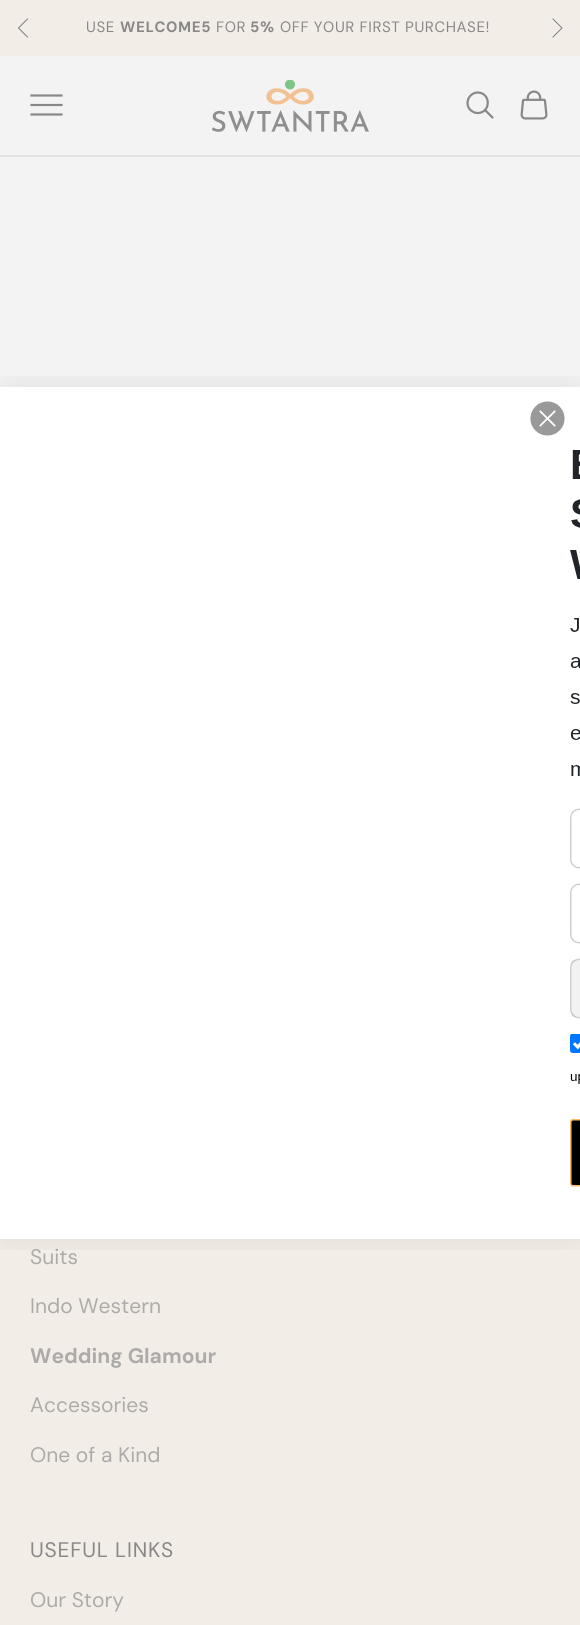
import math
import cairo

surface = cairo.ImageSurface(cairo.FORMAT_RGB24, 580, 1625)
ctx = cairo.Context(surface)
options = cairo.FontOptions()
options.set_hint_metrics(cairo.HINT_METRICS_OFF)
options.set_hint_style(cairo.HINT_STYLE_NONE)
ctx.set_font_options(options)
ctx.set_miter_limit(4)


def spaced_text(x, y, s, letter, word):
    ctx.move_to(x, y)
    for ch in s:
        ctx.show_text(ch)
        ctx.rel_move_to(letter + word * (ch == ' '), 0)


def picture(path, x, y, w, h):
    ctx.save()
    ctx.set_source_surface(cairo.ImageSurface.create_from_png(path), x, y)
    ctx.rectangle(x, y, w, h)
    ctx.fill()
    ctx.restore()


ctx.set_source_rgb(0.953, 0.953, 0.953)
ctx.paint()
ctx.set_source_rgb(0.953, 0.929, 0.906)
ctx.rectangle(0, 0, 580, 56)
ctx.fill()
ctx.new_path()
ctx.move_to(27.5, 19)
ctx.line_to(18.5, 28)
ctx.line_to(27.5, 37)
ctx.set_source_rgb(0.533, 0.533, 0.533)
ctx.set_line_width(1.1)
ctx.set_line_cap(cairo.LINE_CAP_SQUARE)
ctx.stroke()
ctx.select_font_face("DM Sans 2")
ctx.set_font_size(15)
spaced_text(86, 32, "USE", 0.6, 0)
ctx.select_font_face("DM Sans 2", cairo.FONT_SLANT_NORMAL, cairo.FONT_WEIGHT_BOLD)
spaced_text(120, 32, "WELCOME5", 0.6, 0)
ctx.select_font_face("DM Sans 2")
spaced_text(216, 32, "FOR", 0.6, 0)
ctx.select_font_face("DM Sans 2", cairo.FONT_SLANT_NORMAL, cairo.FONT_WEIGHT_BOLD)
spaced_text(250, 32, "5%", 0.6, 0)
ctx.select_font_face("DM Sans 2")
spaced_text(280, 32, "OFF YOUR FIRST PURCHASE!", 0.6, 0)
ctx.new_path()
ctx.move_to(553, 37)
ctx.line_to(562, 28)
ctx.line_to(553, 19)
ctx.stroke()
ctx.set_source_rgb(0.89, 0.89, 0.89)
ctx.rectangle(0, 155, 580, 2)
ctx.fill()
ctx.new_path()
ctx.move_to(31.5, 114.5)
ctx.line_to(61.5, 114.5)
ctx.move_to(31.5, 105)
ctx.line_to(61.5, 105)
ctx.move_to(31.5, 95.5)
ctx.line_to(61.5, 95.5)
ctx.set_source_rgb(0.533, 0.533, 0.533)
ctx.set_line_width(2.2)
ctx.stroke()
picture("img1.png", 212, 80, 157, 52)
ctx.new_path()
ctx.move_to(478, 92.5)
ctx.curve_to(467.5, 92.5, 463.5, 106.5, 472.5, 111.5)
ctx.curve_to(474, 112.5, 476, 113, 478, 113)
ctx.curve_to(491, 112.5, 491, 93, 478, 92.5)
ctx.close_path()
ctx.set_line_cap(cairo.LINE_CAP_BUTT)
ctx.stroke()
ctx.new_path()
ctx.move_to(485.5, 110.5)
ctx.line_to(492.5, 117.5)
ctx.set_line_cap(cairo.LINE_CAP_ROUND)
ctx.stroke()
picture("img2.png", 520, 90, 28, 30)
ctx.set_source_rgb(0.953, 0.929, 0.906)
ctx.rectangle(0, 1239, 580, 386)
ctx.fill()
ctx.select_font_face("DM Sans")
ctx.set_font_size(21)
ctx.set_source_rgb(0.678, 0.671, 0.663)
ctx.move_to(30, 1264)
ctx.show_text("Suits")
picture("img3.png", 0, 376, 580, 874)
ctx.move_to(30, 1313)
ctx.show_text("Indo Western")
ctx.select_font_face("DM Sans", cairo.FONT_SLANT_NORMAL, cairo.FONT_WEIGHT_BOLD)
ctx.move_to(30, 1363)
ctx.show_text("Wedding Glamour")
ctx.select_font_face("DM Sans")
ctx.move_to(30, 1412)
ctx.show_text("Accessories")
ctx.move_to(30, 1462)
ctx.show_text("One of a Kind")
ctx.set_source_rgb(0.533, 0.533, 0.533)
spaced_text(30, 1557, "USEFUL LINKS", 0.8, 0)
ctx.set_source_rgb(0.678, 0.671, 0.663)
ctx.move_to(30, 1607)
ctx.show_text("Our Story")
surface.write_to_png("page.png")
